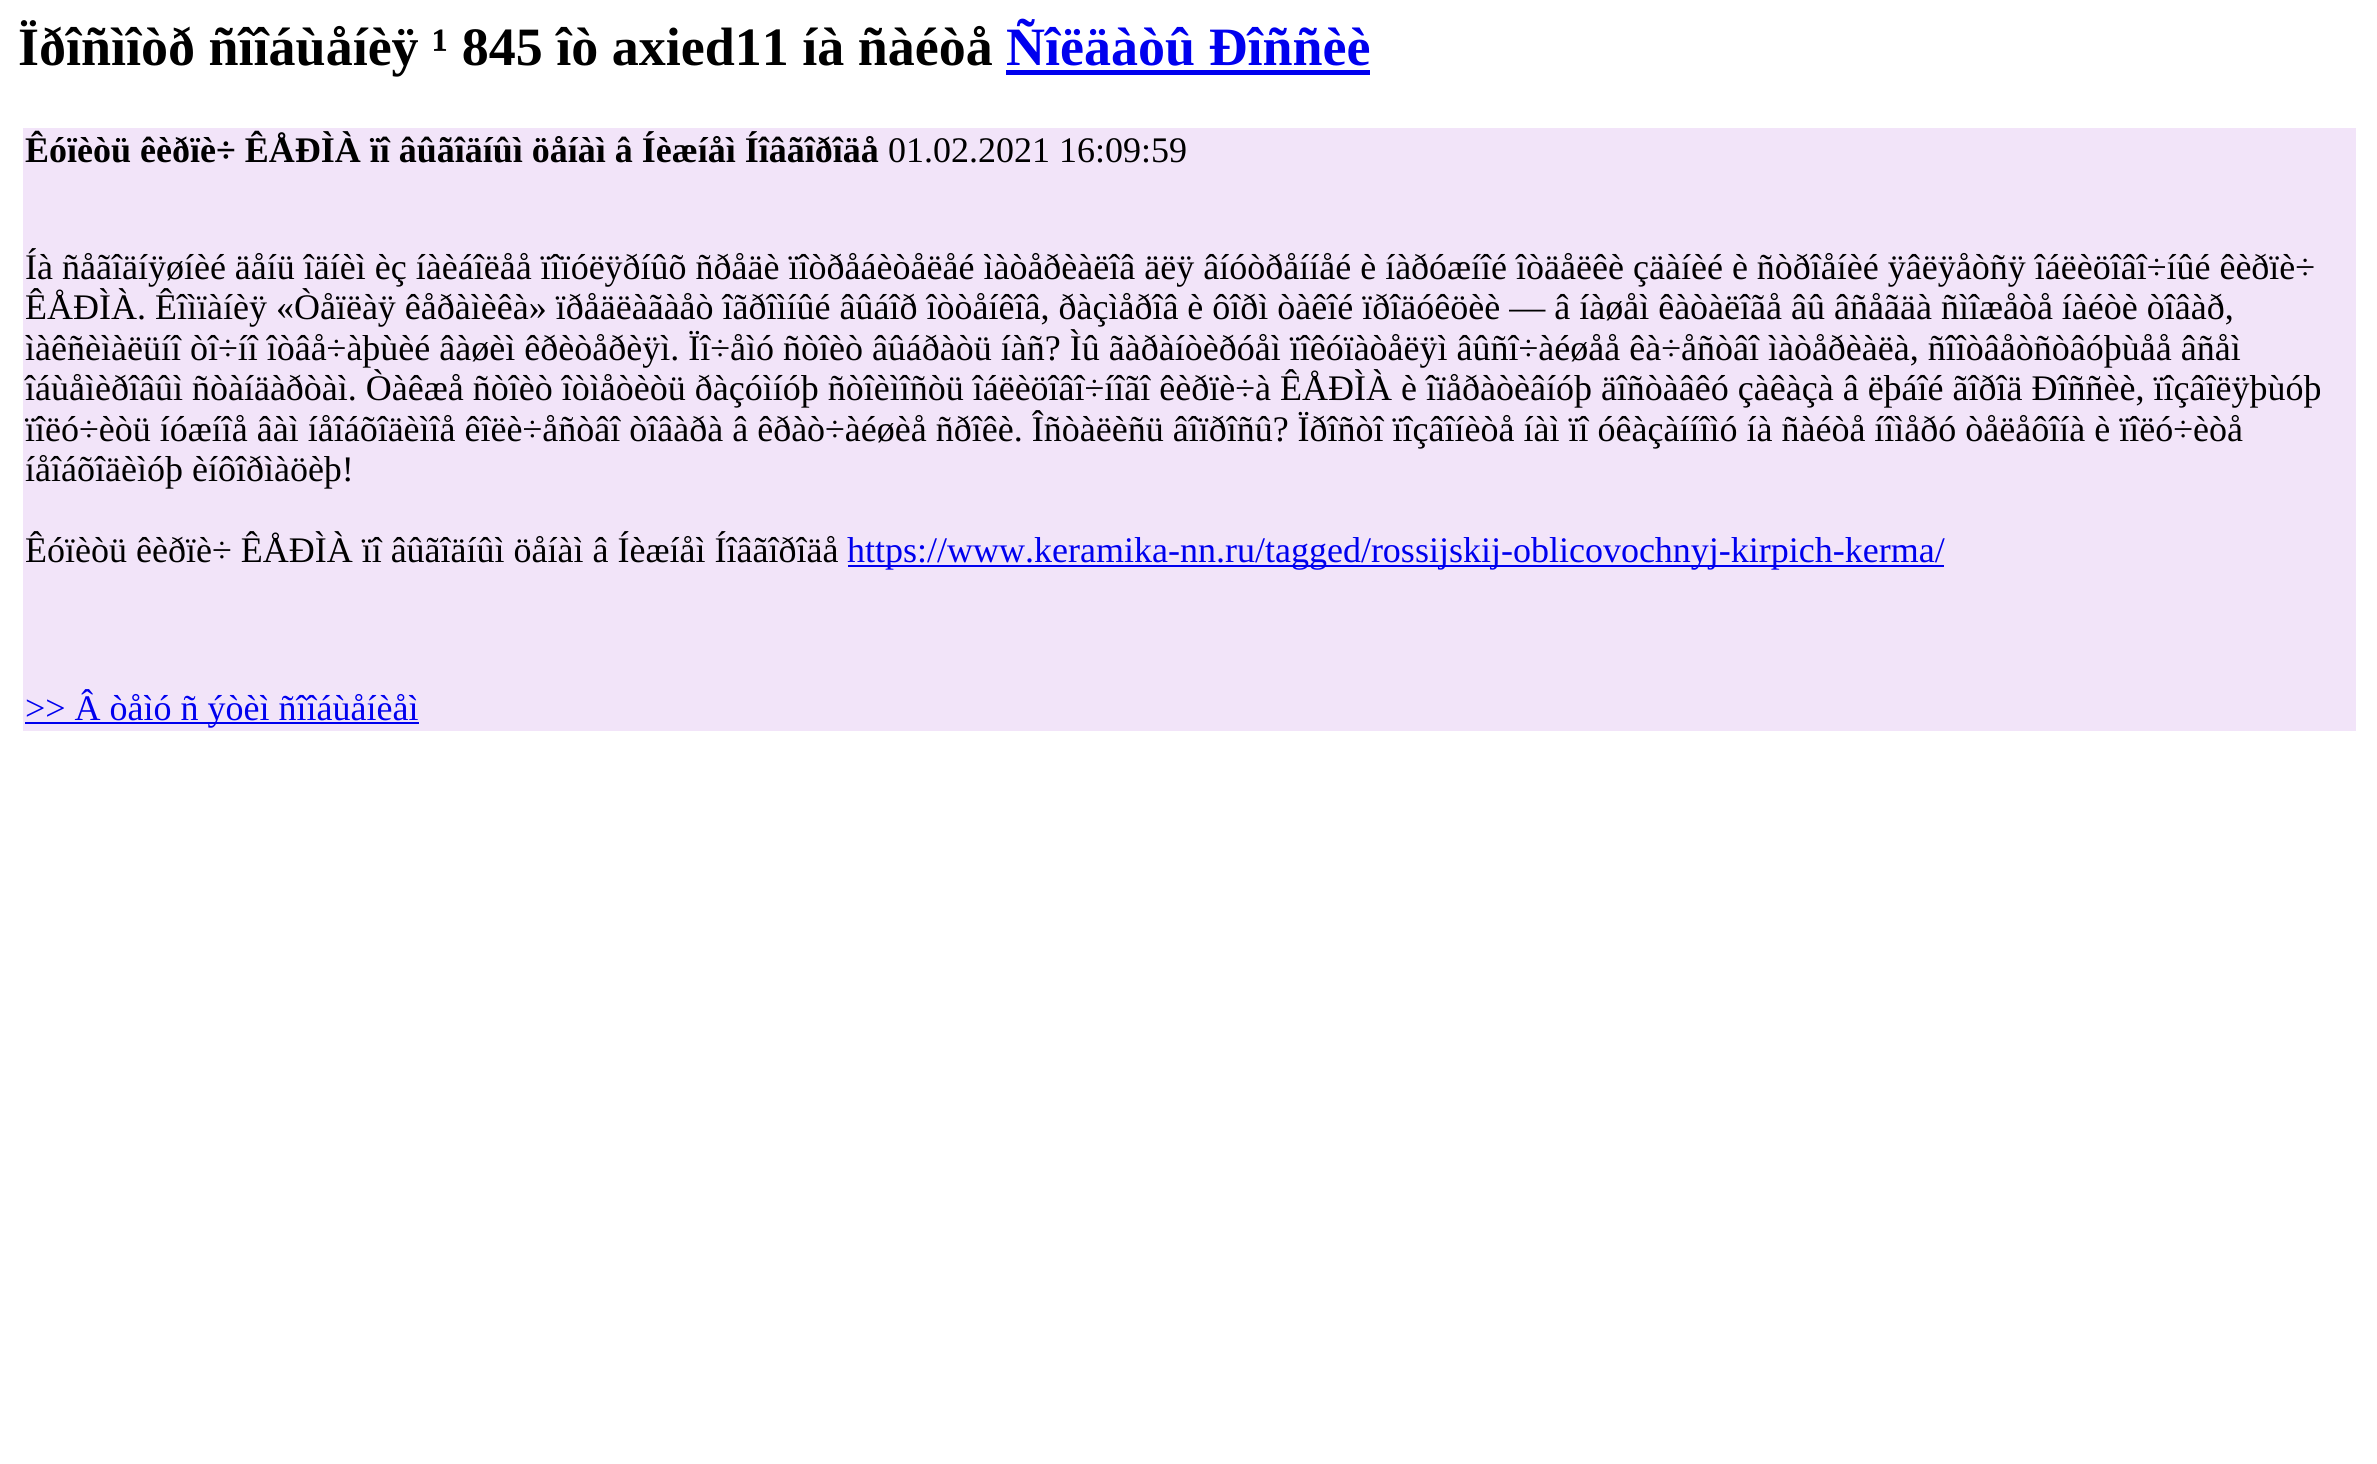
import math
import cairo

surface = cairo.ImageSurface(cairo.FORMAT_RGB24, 2377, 1464)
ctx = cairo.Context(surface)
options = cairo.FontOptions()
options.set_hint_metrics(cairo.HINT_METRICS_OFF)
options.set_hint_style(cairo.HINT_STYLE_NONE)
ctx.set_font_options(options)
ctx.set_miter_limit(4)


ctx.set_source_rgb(1, 1, 1)
ctx.paint()
ctx.select_font_face("Liberation Serif", cairo.FONT_SLANT_NORMAL, cairo.FONT_WEIGHT_BOLD)
ctx.set_font_size(54)
ctx.set_source_rgb(0, 0, 0)
ctx.move_to(18, 65)
ctx.show_text("Ïðîñìîòð ñîîáùåíèÿ ¹ 845 îò axied11 íà ñàéòå")
ctx.set_source_rgb(0, 0, 0.933)
ctx.move_to(1006, 65)
ctx.show_text("Ñîëäàòû Ðîññèè")
ctx.rectangle(1006, 70, 364, 5)
ctx.fill()
ctx.set_source_rgb(0.949, 0.894, 0.976)
ctx.rectangle(23, 128, 2333, 603)
ctx.fill()
ctx.set_font_size(36)
ctx.set_source_rgb(0, 0, 0)
ctx.move_to(25, 162)
ctx.show_text("Êóïèòü êèðïè÷ ÊÅÐÌÀ ïî âûãîäíûì öåíàì â Íèæíåì Íîâãîðîäå")
ctx.select_font_face("Liberation Serif")
ctx.move_to(888, 162)
ctx.show_text("01.02.2021 16:09:59")
ctx.move_to(25, 279)
ctx.show_text("Íà ñåãîäíÿøíèé äåíü îäíèì èç íàèáîëåå ïîïóëÿðíûõ ñðåäè ïîòðåáèòåëåé ìàòåðèàëîâ äëÿ âíóòðåííåé è íàðóæíîé îòäåëêè çäàíèé è ñòðîåíèé ÿâëÿåòñÿ îáëèöîâî÷íûé êèðïè÷")
ctx.move_to(25, 319)
ctx.show_text("ÊÅÐÌÀ. Êîìïàíèÿ «Òåïëàÿ êåðàìèêà» ïðåäëàãàåò îãðîìíûé âûáîð îòòåíêîâ, ðàçìåðîâ è ôîðì òàêîé ïðîäóêöèè — â íàøåì êàòàëîãå âû âñåãäà ñìîæåòå íàéòè òîâàð,")
ctx.move_to(25, 360)
ctx.show_text("ìàêñèìàëüíî òî÷íî îòâå÷àþùèé âàøèì êðèòåðèÿì. Ïî÷åìó ñòîèò âûáðàòü íàñ? Ìû ãàðàíòèðóåì ïîêóïàòåëÿì âûñî÷àéøåå êà÷åñòâî ìàòåðèàëà, ñîîòâåòñòâóþùåå âñåì")
ctx.move_to(25, 400)
ctx.show_text("îáùåìèðîâûì ñòàíäàðòàì. Òàêæå ñòîèò îòìåòèòü ðàçóìíóþ ñòîèìîñòü îáëèöîâî÷íîãî êèðïè÷à ÊÅÐÌÀ è îïåðàòèâíóþ äîñòàâêó çàêàçà â ëþáîé ãîðîä Ðîññèè, ïîçâîëÿþùóþ")
ctx.move_to(25, 441)
ctx.show_text("ïîëó÷èòü íóæíîå âàì íåîáõîäèìîå êîëè÷åñòâî òîâàðà â êðàò÷àéøèå ñðîêè. Îñòàëèñü âîïðîñû? Ïðîñòî ïîçâîíèòå íàì ïî óêàçàííîìó íà ñàéòå íîìåðó òåëåôîíà è ïîëó÷èòå")
ctx.move_to(25, 481)
ctx.show_text("íåîáõîäèìóþ èíôîðìàöèþ!")
ctx.move_to(25, 562)
ctx.show_text("Êóïèòü êèðïè÷ ÊÅÐÌÀ ïî âûãîäíûì öåíàì â Íèæíåì Íîâãîðîäå")
ctx.set_source_rgb(0, 0, 0.933)
ctx.rectangle(848, 565, 1096, 2)
ctx.fill()
ctx.move_to(847, 562)
ctx.show_text("https://www.keramika-nn.ru/tagged/rossijskij-oblicovochnyj-kirpich-kerma/")
ctx.rectangle(25, 722, 394, 2)
ctx.fill()
ctx.move_to(25, 720)
ctx.show_text(">> Â òåìó ñ ýòèì ñîîáùåíèåì")
surface.write_to_png("page.png")
